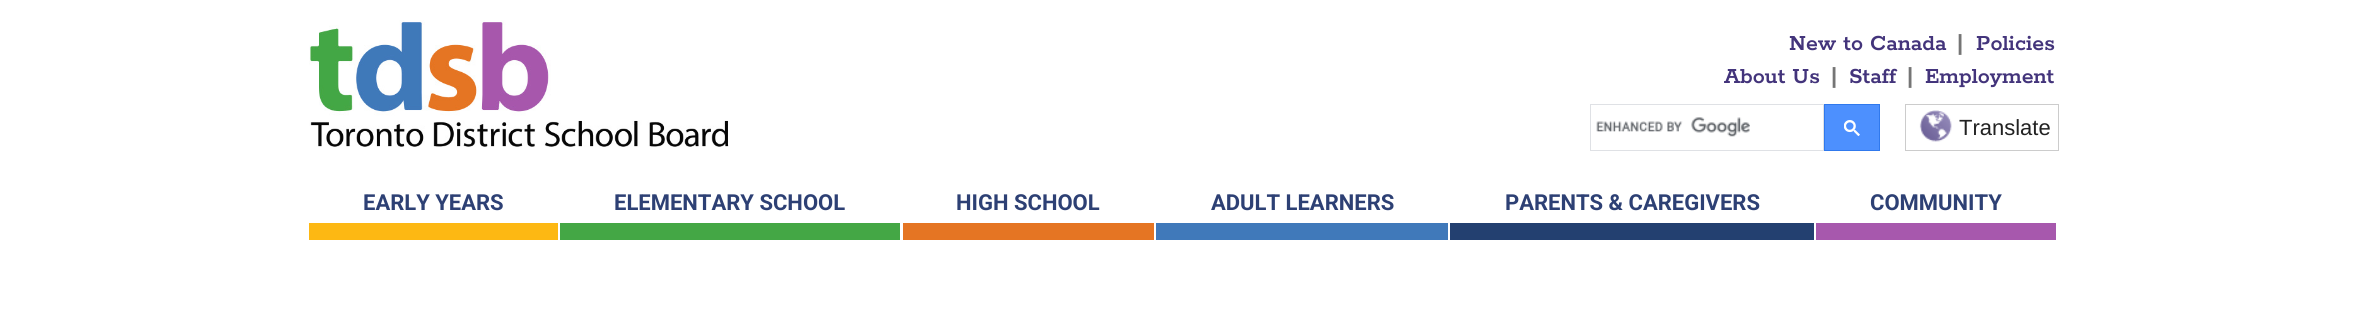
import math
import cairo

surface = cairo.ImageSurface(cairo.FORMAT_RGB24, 2367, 326)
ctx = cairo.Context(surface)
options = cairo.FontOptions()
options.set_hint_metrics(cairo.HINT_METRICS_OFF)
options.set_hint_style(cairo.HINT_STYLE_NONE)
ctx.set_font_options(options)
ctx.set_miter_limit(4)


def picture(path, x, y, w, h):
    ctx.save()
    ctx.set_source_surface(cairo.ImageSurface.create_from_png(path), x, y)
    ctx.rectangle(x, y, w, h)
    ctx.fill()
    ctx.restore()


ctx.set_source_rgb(1, 1, 1)
ctx.paint()
picture("img1.png", 309, 20, 420, 127)
ctx.select_font_face("Rokkitt SemiBold")
ctx.set_font_size(24)
ctx.set_source_rgb(0.263, 0.204, 0.482)
ctx.move_to(1789, 50)
ctx.show_text("New to Canada")
ctx.select_font_face("Liberation Sans", cairo.FONT_SLANT_NORMAL, cairo.FONT_WEIGHT_BOLD)
ctx.set_font_size(22)
ctx.set_source_rgb(0.459, 0.459, 0.459)
ctx.move_to(1957, 50)
ctx.show_text("|")
ctx.select_font_face("Rokkitt SemiBold")
ctx.set_font_size(24)
ctx.set_source_rgb(0.263, 0.204, 0.482)
ctx.move_to(1976, 50)
ctx.show_text("Policies")
ctx.move_to(1724, 83)
ctx.show_text("About Us")
ctx.select_font_face("Liberation Sans", cairo.FONT_SLANT_NORMAL, cairo.FONT_WEIGHT_BOLD)
ctx.set_font_size(22)
ctx.set_source_rgb(0.459, 0.459, 0.459)
ctx.move_to(1831, 83)
ctx.show_text("|")
ctx.select_font_face("Rokkitt SemiBold")
ctx.set_font_size(24)
ctx.set_source_rgb(0.263, 0.204, 0.482)
ctx.move_to(1849, 83)
ctx.show_text("Staff")
ctx.select_font_face("Liberation Sans", cairo.FONT_SLANT_NORMAL, cairo.FONT_WEIGHT_BOLD)
ctx.set_font_size(22)
ctx.set_source_rgb(0.459, 0.459, 0.459)
ctx.move_to(1907, 83)
ctx.show_text("|")
ctx.select_font_face("Rokkitt SemiBold")
ctx.set_font_size(24)
ctx.set_source_rgb(0.263, 0.204, 0.482)
ctx.move_to(1925, 83)
ctx.show_text("Employment")
ctx.rectangle(1590.5, 104.5, 233, 46)
ctx.set_source_rgb(0.875, 0.882, 0.898)
ctx.set_line_width(1)
ctx.stroke()
picture("img2.png", 1596, 117, 154, 20)
ctx.set_source_rgb(0.302, 0.565, 0.996)
ctx.rectangle(1824.5, 104.5, 55, 46)
ctx.fill_preserve()
ctx.set_source_rgb(0.188, 0.475, 0.929)
ctx.stroke()
picture("img3.png", 1844, 120, 16, 16)
ctx.rectangle(1905.5, 104.5, 153, 46)
ctx.set_source_rgb(0.8, 0.8, 0.8)
ctx.stroke()
picture("img4.png", 1919, 110, 33, 32)
ctx.select_font_face("Liberation Sans")
ctx.set_font_size(22)
ctx.set_source_rgb(0.133, 0.133, 0.133)
ctx.move_to(1959, 135)
ctx.show_text("Translate")
ctx.set_source_rgb(0.992, 0.722, 0.075)
ctx.rectangle(309, 223, 249, 17)
ctx.fill()
ctx.select_font_face("Roboto", cairo.FONT_SLANT_NORMAL, cairo.FONT_WEIGHT_BOLD)
ctx.set_source_rgb(0.176, 0.251, 0.455)
ctx.move_to(363, 210)
ctx.show_text("EARLY YEARS")
ctx.set_source_rgb(0.267, 0.655, 0.271)
ctx.rectangle(560, 223, 340, 17)
ctx.fill()
ctx.set_source_rgb(0.176, 0.251, 0.455)
ctx.move_to(614, 210)
ctx.show_text("ELEMENTARY SCHOOL")
ctx.set_source_rgb(0.898, 0.459, 0.137)
ctx.rectangle(903, 223, 251, 17)
ctx.fill()
ctx.set_source_rgb(0.176, 0.251, 0.455)
ctx.move_to(956, 210)
ctx.show_text("HIGH SCHOOL")
ctx.set_source_rgb(0.251, 0.475, 0.729)
ctx.rectangle(1156, 223, 292, 17)
ctx.fill()
ctx.set_source_rgb(0.176, 0.251, 0.455)
ctx.move_to(1211, 210)
ctx.show_text("ADULT LEARNERS")
ctx.set_source_rgb(0.137, 0.251, 0.439)
ctx.rectangle(1450, 223, 364, 17)
ctx.fill()
ctx.set_source_rgb(0.176, 0.251, 0.455)
ctx.move_to(1505, 210)
ctx.show_text("PARENTS & CAREGIVERS")
ctx.set_source_rgb(0.655, 0.345, 0.678)
ctx.rectangle(1816, 223, 240, 17)
ctx.fill()
ctx.set_source_rgb(0.176, 0.251, 0.455)
ctx.move_to(1870, 210)
ctx.show_text("COMMUNITY")
surface.write_to_png("page.png")
